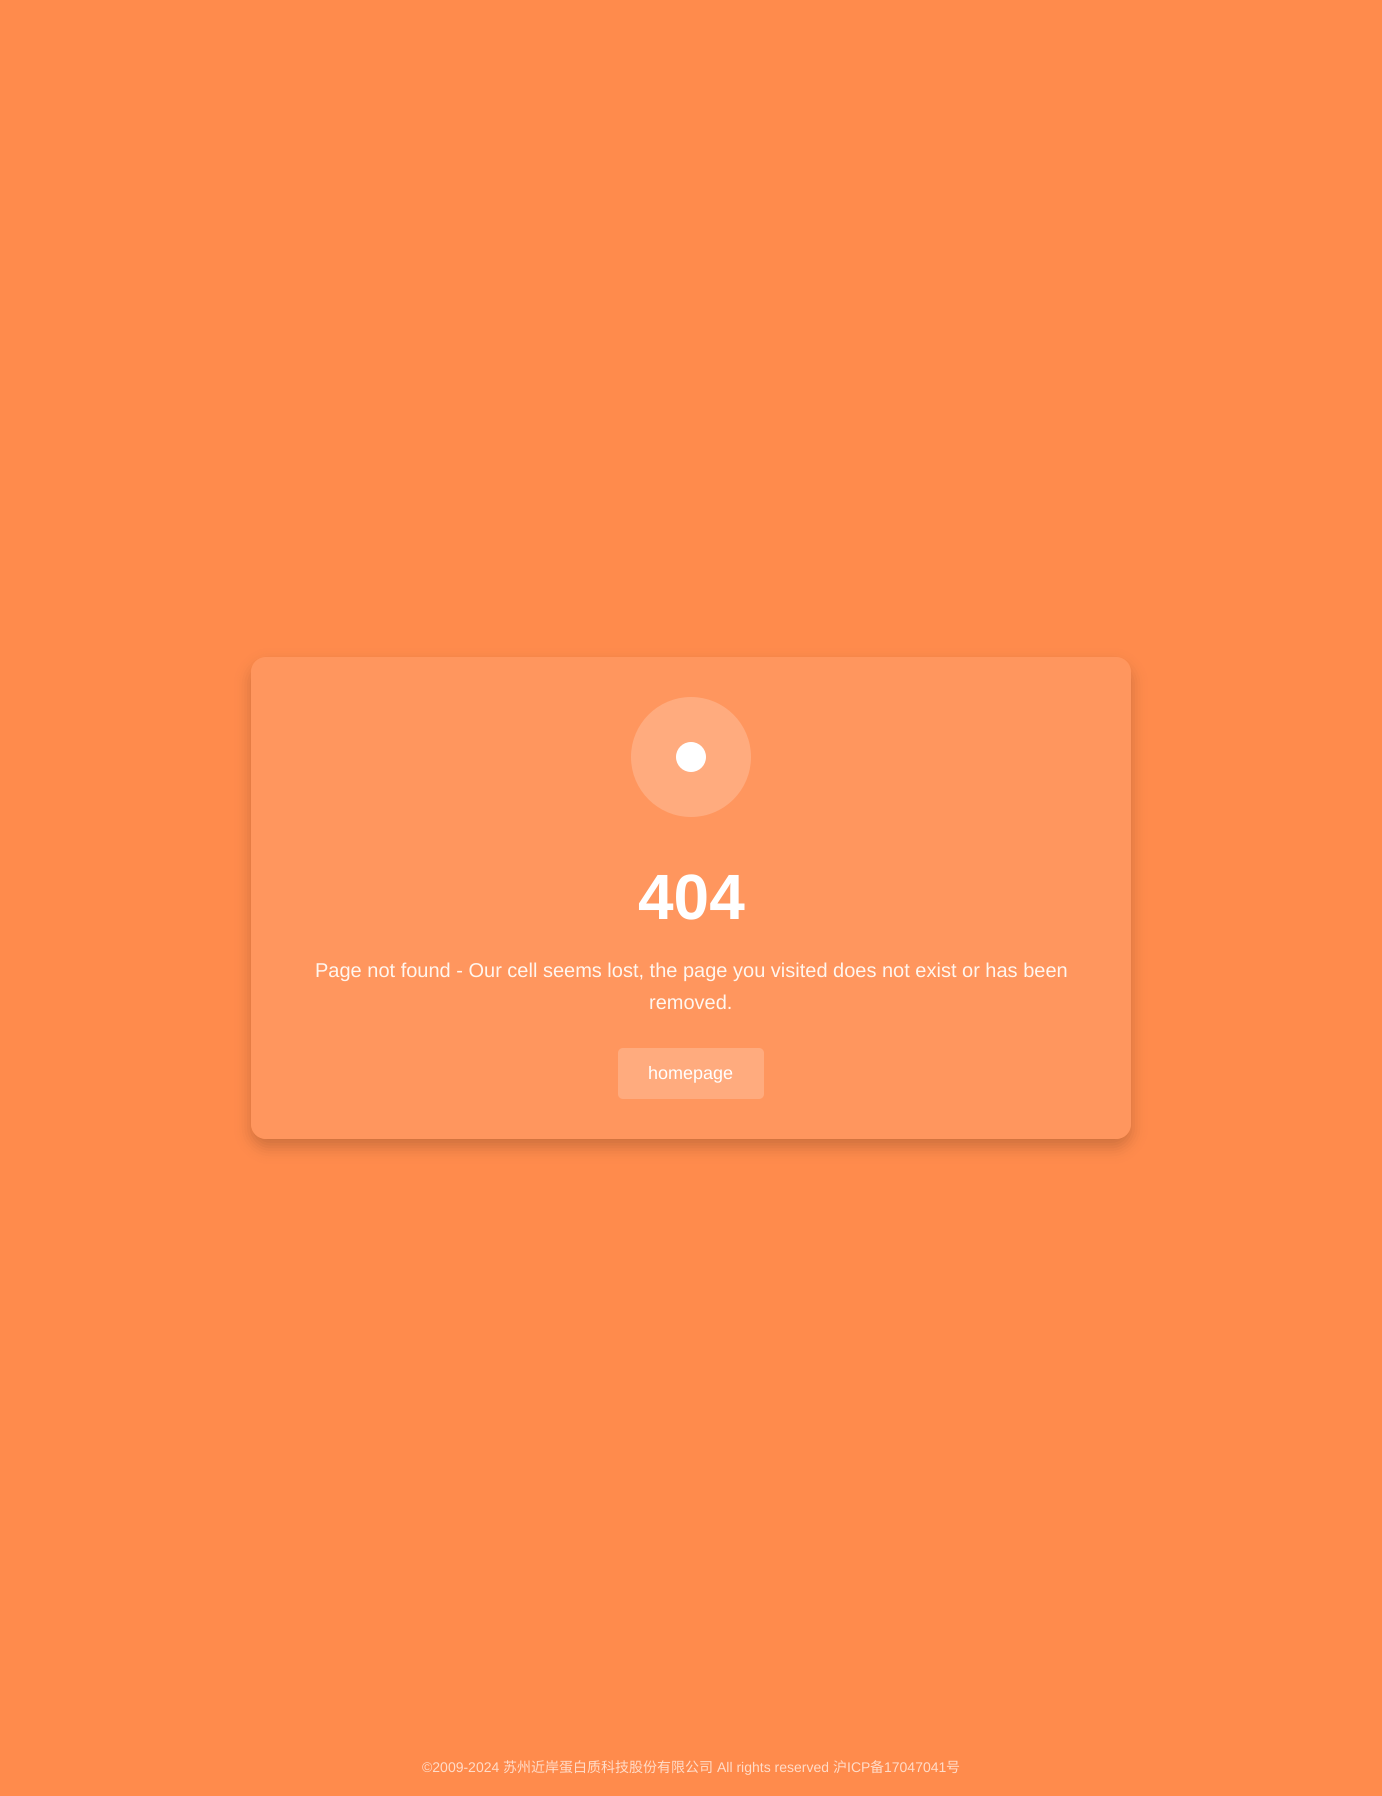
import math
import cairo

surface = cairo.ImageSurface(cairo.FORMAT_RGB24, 1382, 1796)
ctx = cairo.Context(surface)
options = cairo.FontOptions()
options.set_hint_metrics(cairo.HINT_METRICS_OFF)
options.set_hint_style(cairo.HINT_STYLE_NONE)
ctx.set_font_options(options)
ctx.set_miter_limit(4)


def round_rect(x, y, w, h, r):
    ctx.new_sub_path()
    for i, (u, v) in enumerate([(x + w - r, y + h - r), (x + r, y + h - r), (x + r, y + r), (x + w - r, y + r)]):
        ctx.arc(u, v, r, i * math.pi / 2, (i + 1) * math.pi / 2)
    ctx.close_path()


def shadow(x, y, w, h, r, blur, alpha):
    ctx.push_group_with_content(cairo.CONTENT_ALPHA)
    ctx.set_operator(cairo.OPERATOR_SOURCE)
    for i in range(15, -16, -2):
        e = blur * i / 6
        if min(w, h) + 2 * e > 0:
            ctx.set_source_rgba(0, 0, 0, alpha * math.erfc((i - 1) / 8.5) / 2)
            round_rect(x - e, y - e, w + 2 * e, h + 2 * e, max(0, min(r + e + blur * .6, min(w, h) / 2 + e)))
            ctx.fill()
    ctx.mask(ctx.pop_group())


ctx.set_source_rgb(1, 0.545, 0.298)
ctx.paint()
ctx.save()
ctx.set_fill_rule(cairo.FILL_RULE_EVEN_ODD)
ctx.new_path()
ctx.move_to(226, 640)
ctx.line_to(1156, 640)
ctx.line_to(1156, 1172)
ctx.line_to(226, 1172)
ctx.close_path()
ctx.move_to(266, 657)
ctx.line_to(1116, 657)
ctx.curve_to(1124.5, 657, 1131, 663.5, 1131, 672)
ctx.line_to(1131, 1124)
ctx.curve_to(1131, 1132.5, 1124.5, 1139, 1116, 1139)
ctx.line_to(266, 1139)
ctx.curve_to(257.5, 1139, 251, 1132.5, 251, 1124)
ctx.line_to(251, 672)
ctx.curve_to(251, 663.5, 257.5, 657, 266, 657)
ctx.close_path()
ctx.clip()
ctx.set_source_rgb(0, 0, 0)
shadow(251, 665, 880, 482, 15, 8, 0.2)
ctx.restore()
ctx.set_source_rgba(1, 1, 1, 0.1)
round_rect(251, 657, 880, 482, 15)
ctx.fill()
ctx.set_source_rgb(1, 0.671, 0.494)
ctx.arc(691, 757, 60, 0, 2 * math.pi)
ctx.fill()
ctx.set_source_rgb(1, 1, 1)
ctx.arc(691, 757, 15, 0, 2 * math.pi)
ctx.fill()
ctx.select_font_face("Liberation Sans", cairo.FONT_SLANT_NORMAL, cairo.FONT_WEIGHT_BOLD)
ctx.set_font_size(64)
ctx.move_to(638, 919)
ctx.show_text("404")
ctx.select_font_face("Liberation Sans")
ctx.set_font_size(20)
ctx.set_source_rgb(1, 0.961, 0.937)
ctx.move_to(315, 977)
ctx.show_text("Page not found - Our cell seems lost, the page you visited does not exist or has been")
ctx.move_to(649, 1009)
ctx.show_text("removed.")
ctx.set_source_rgb(1, 0.671, 0.494)
round_rect(618, 1048, 146, 51, 5)
ctx.fill()
ctx.set_font_size(18)
ctx.set_source_rgb(1, 1, 1)
ctx.move_to(648, 1079)
ctx.show_text("homepage")
ctx.set_font_size(14)
ctx.set_source_rgb(1, 0.863, 0.788)
ctx.move_to(422, 1772)
ctx.show_text("©2009-2024")
ctx.select_font_face("Noto Sans CJK SC")
ctx.move_to(503, 1772)
ctx.show_text("苏州近岸蛋白质科技股份有限公司")
ctx.select_font_face("Liberation Sans")
ctx.move_to(717, 1772)
ctx.show_text("All rights reserved")
ctx.select_font_face("Noto Sans CJK SC")
ctx.move_to(833, 1772)
ctx.show_text("沪")
ctx.select_font_face("Liberation Sans")
ctx.move_to(847, 1772)
ctx.show_text("ICP")
ctx.select_font_face("Noto Sans CJK SC")
ctx.move_to(870, 1772)
ctx.show_text("备")
ctx.select_font_face("Liberation Sans")
ctx.move_to(884, 1772)
ctx.show_text("17047041")
ctx.select_font_face("Noto Sans CJK SC")
ctx.move_to(946, 1772)
ctx.show_text("号")
surface.write_to_png("page.png")
